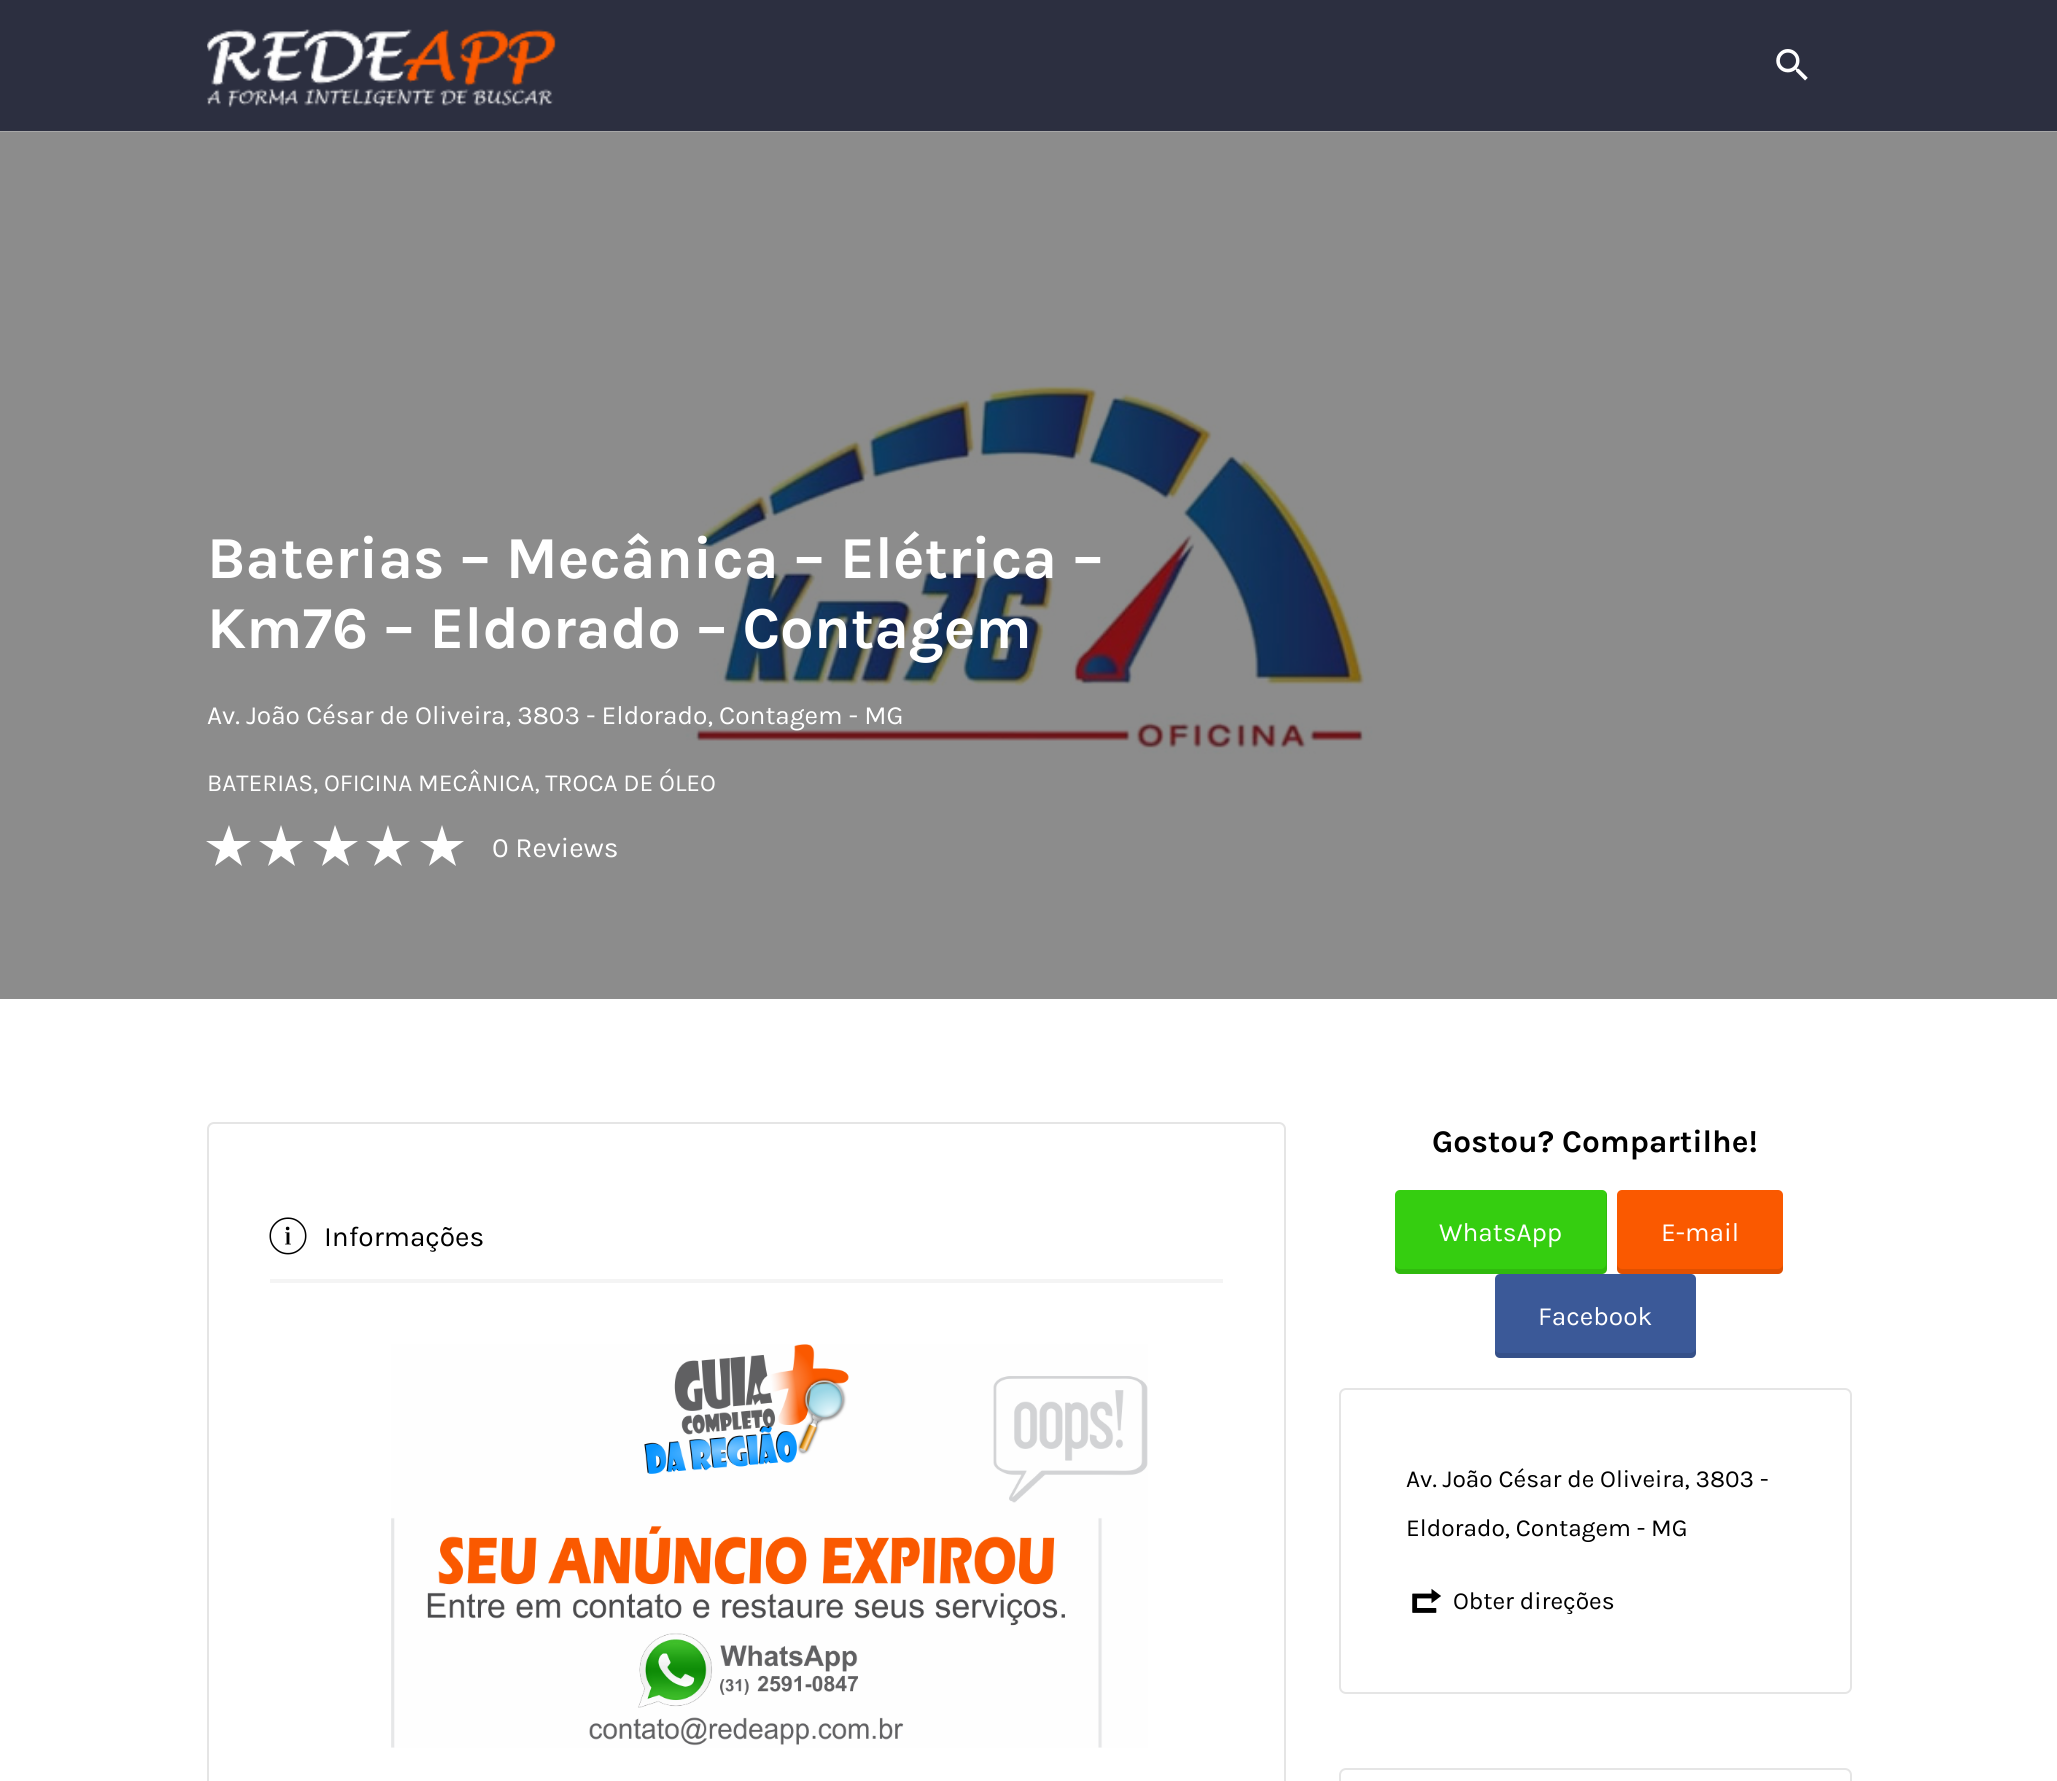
import math
import cairo

surface = cairo.ImageSurface(cairo.FORMAT_RGB24, 2057, 1781)
ctx = cairo.Context(surface)
options = cairo.FontOptions()
options.set_hint_metrics(cairo.HINT_METRICS_OFF)
options.set_hint_style(cairo.HINT_STYLE_NONE)
ctx.set_font_options(options)
ctx.set_miter_limit(4)


def round_rect(x, y, w, h, r):
    ctx.new_sub_path()
    for i, (u, v) in enumerate([(x + w - r, y + h - r), (x + r, y + h - r), (x + r, y + r), (x + w - r, y + r)]):
        ctx.arc(u, v, r, i * math.pi / 2, (i + 1) * math.pi / 2)
    ctx.close_path()


def picture(path, x, y, w, h):
    ctx.save()
    ctx.set_source_surface(cairo.ImageSurface.create_from_png(path), x, y)
    ctx.rectangle(x, y, w, h)
    ctx.fill()
    ctx.restore()


ctx.set_source_rgb(1, 1, 1)
ctx.paint()
ctx.set_source_rgb(0.173, 0.184, 0.251)
ctx.rectangle(0, 0, 2057, 131)
ctx.fill()
picture("img1.png", 207, 29, 349, 79)
picture("img2.png", 1776, 49, 32, 32)
picture("img3.png", 0, 131, 2057, 868)
ctx.select_font_face("Karla", cairo.FONT_SLANT_NORMAL, cairo.FONT_WEIGHT_BOLD)
ctx.set_font_size(59.5)
ctx.set_source_rgb(1, 1, 1)
ctx.move_to(207, 578)
ctx.show_text("Baterias – Mecânica – Elétrica –")
ctx.move_to(207, 648)
ctx.show_text("Km76 – Eldorado – Contagem")
ctx.select_font_face("Karla")
ctx.set_font_size(26.25)
ctx.move_to(207, 724)
ctx.show_text("Av. João César de Oliveira, 3803 - Eldorado, Contagem - MG")
ctx.set_font_size(24.5)
ctx.move_to(207, 791)
ctx.show_text("BATERIAS, OFICINA MECÂNICA, TROCA DE ÓLEO")
ctx.new_path()
ctx.move_to(251, 841)
ctx.line_to(237, 850)
ctx.line_to(242, 866)
ctx.line_to(229, 856)
ctx.line_to(215, 866)
ctx.line_to(220, 850)
ctx.line_to(206, 841)
ctx.line_to(223, 841)
ctx.line_to(229, 825)
ctx.line_to(234, 841)
ctx.close_path()
ctx.fill()
ctx.new_path()
ctx.move_to(303, 841)
ctx.line_to(290, 850)
ctx.line_to(295, 866)
ctx.line_to(281, 856)
ctx.line_to(268, 866)
ctx.line_to(273, 850)
ctx.line_to(259, 841)
ctx.line_to(276, 841)
ctx.line_to(281, 825)
ctx.line_to(286, 841)
ctx.close_path()
ctx.fill()
ctx.new_path()
ctx.move_to(358, 841)
ctx.line_to(344, 850)
ctx.line_to(349, 866)
ctx.line_to(335, 856)
ctx.line_to(322, 866)
ctx.line_to(327, 850)
ctx.line_to(313, 841)
ctx.line_to(330, 841)
ctx.line_to(335, 825)
ctx.line_to(341, 841)
ctx.close_path()
ctx.fill()
ctx.new_path()
ctx.move_to(410, 841)
ctx.line_to(396, 850)
ctx.line_to(402, 866)
ctx.line_to(388, 856)
ctx.line_to(374, 866)
ctx.line_to(380, 850)
ctx.line_to(366, 841)
ctx.line_to(383, 841)
ctx.line_to(388, 825)
ctx.line_to(393, 841)
ctx.close_path()
ctx.fill()
ctx.new_path()
ctx.move_to(464, 841)
ctx.line_to(451, 850)
ctx.line_to(456, 866)
ctx.line_to(442, 856)
ctx.line_to(429, 866)
ctx.line_to(434, 850)
ctx.line_to(420, 841)
ctx.line_to(437, 841)
ctx.line_to(442, 825)
ctx.line_to(447, 841)
ctx.close_path()
ctx.fill()
ctx.set_font_size(28)
ctx.move_to(492, 857)
ctx.show_text("0 Reviews")
ctx.select_font_face("Karla", cairo.FONT_SLANT_NORMAL, cairo.FONT_WEIGHT_BOLD)
ctx.set_font_size(31.5)
ctx.set_source_rgb(0, 0, 0)
ctx.move_to(1432, 1152)
ctx.show_text("Gostou? Compartilhe!")
round_rect(208, 1123, 1077, 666, 6)
ctx.set_source_rgb(0.898, 0.898, 0.898)
ctx.stroke()
ctx.set_source_rgb(0.957, 0.957, 0.957)
ctx.rectangle(270, 1279, 953, 4)
ctx.fill()
picture("img4.png", 269, 1217, 38, 38)
ctx.select_font_face("Karla")
ctx.set_font_size(28)
ctx.set_source_rgb(0, 0, 0)
ctx.move_to(324, 1246)
ctx.show_text("Informações")
picture("img5.png", 391, 1344, 757, 404)
ctx.set_source_rgb(0.208, 0.808, 0.063)
round_rect(1395, 1190, 212, 84, 5)
ctx.fill()
ctx.set_source_rgba(0, 0, 0, 0.1)
ctx.new_path()
ctx.move_to(1395, 1264)
ctx.line_to(1395, 1269)
ctx.curve_to(1395, 1272, 1397, 1274, 1400, 1274)
ctx.line_to(1602, 1274)
ctx.curve_to(1605, 1274, 1607, 1272, 1607, 1269)
ctx.line_to(1607, 1195)
ctx.curve_to(1607, 1194, 1607, 1193, 1606, 1192)
ctx.line_to(1606, 1264)
ctx.curve_to(1606, 1266, 1604, 1269, 1601, 1269)
ctx.line_to(1400, 1269)
ctx.curve_to(1397, 1269, 1395, 1266, 1395, 1264)
ctx.close_path()
ctx.fill()
ctx.set_font_size(26.25)
ctx.set_source_rgb(1, 1, 1)
ctx.move_to(1439, 1241)
ctx.show_text("WhatsApp")
ctx.set_source_rgb(0.98, 0.349, 0)
round_rect(1617, 1190, 166, 84, 5)
ctx.fill()
ctx.set_source_rgba(0, 0, 0, 0.1)
ctx.new_path()
ctx.move_to(1617, 1264)
ctx.line_to(1617, 1269)
ctx.curve_to(1617, 1272, 1619, 1274, 1622, 1274)
ctx.line_to(1778, 1274)
ctx.curve_to(1781, 1274, 1783, 1272, 1783, 1269)
ctx.line_to(1783, 1264)
ctx.curve_to(1783, 1266, 1781, 1269, 1778, 1269)
ctx.line_to(1622, 1269)
ctx.curve_to(1619, 1269, 1617, 1266, 1617, 1264)
ctx.close_path()
ctx.fill()
ctx.set_source_rgb(1, 1, 1)
ctx.move_to(1661, 1241)
ctx.show_text("E-mail")
ctx.set_source_rgb(0.231, 0.349, 0.596)
round_rect(1495, 1274, 201, 84, 5)
ctx.fill()
ctx.set_source_rgba(0, 0, 0, 0.1)
ctx.new_path()
ctx.move_to(1495, 1350)
ctx.line_to(1495, 1353)
ctx.curve_to(1495, 1356, 1497, 1358, 1500, 1358)
ctx.line_to(1691, 1358)
ctx.curve_to(1694, 1358, 1696, 1356, 1696, 1353)
ctx.line_to(1696, 1348)
ctx.curve_to(1696, 1350, 1693, 1353, 1690, 1353)
ctx.line_to(1500, 1353)
ctx.curve_to(1498, 1353, 1496, 1352, 1495, 1350)
ctx.close_path()
ctx.fill()
ctx.set_source_rgb(1, 1, 1)
ctx.move_to(1538, 1325)
ctx.show_text("Facebook")
round_rect(1340, 1389, 511, 304, 6)
ctx.set_source_rgb(0.898, 0.898, 0.898)
ctx.stroke()
ctx.set_font_size(24.5)
ctx.set_source_rgb(0, 0, 0)
ctx.move_to(1406, 1487)
ctx.show_text("Av. João César de Oliveira, 3803 -")
ctx.move_to(1406, 1536)
ctx.show_text("Eldorado, Contagem - MG")
picture("img6.png", 1412, 1588, 29, 25)
ctx.move_to(1453, 1609)
ctx.show_text("Obter direções")
round_rect(1340, 1769, 511, 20, 6)
ctx.set_source_rgb(0.898, 0.898, 0.898)
ctx.stroke()
surface.write_to_png("page.png")
